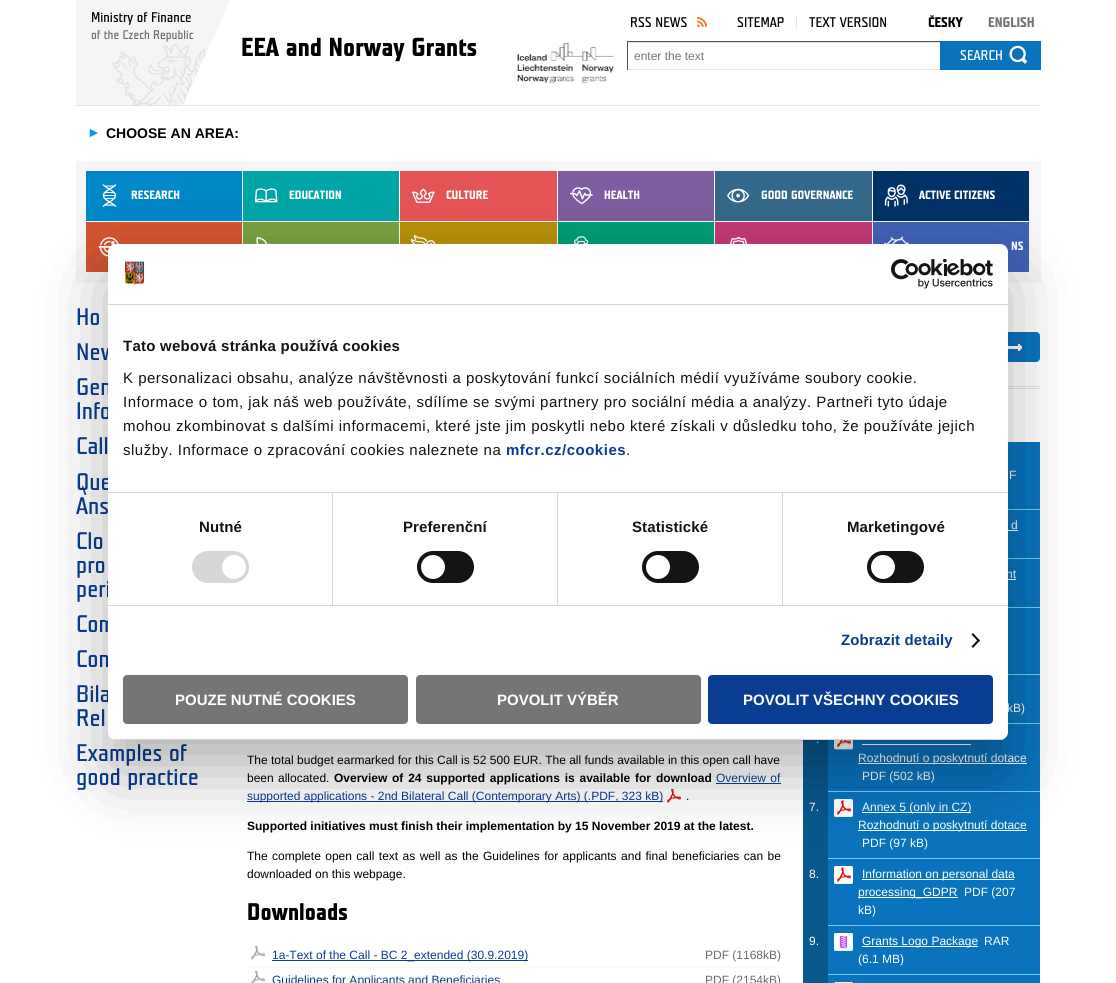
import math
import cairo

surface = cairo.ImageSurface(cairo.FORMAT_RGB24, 1116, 983)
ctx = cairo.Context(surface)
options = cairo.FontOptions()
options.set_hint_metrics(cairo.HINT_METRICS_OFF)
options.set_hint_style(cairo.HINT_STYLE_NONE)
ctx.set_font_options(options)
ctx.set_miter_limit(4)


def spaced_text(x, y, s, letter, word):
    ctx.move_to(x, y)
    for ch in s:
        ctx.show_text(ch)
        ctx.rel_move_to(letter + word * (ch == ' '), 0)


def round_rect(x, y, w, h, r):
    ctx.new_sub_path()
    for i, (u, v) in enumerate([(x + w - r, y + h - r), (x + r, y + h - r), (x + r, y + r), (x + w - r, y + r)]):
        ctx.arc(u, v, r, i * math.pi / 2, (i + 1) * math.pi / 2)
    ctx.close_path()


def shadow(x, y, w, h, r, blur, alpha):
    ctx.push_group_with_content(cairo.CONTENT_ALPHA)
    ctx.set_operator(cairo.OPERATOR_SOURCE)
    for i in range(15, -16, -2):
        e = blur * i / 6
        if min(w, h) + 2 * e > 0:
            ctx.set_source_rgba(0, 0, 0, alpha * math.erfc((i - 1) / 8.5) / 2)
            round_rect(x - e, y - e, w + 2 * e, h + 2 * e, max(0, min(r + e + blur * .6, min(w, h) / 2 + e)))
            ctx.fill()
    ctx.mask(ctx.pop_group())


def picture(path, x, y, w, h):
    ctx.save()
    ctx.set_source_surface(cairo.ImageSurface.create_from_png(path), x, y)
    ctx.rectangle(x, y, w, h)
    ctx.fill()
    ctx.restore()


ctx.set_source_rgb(1, 1, 1)
ctx.paint()
ctx.set_source_rgb(0.898, 0.898, 0.898)
ctx.rectangle(76, 105, 965, 1)
ctx.fill()
picture("img1.png", 76, 0, 154, 105)
ctx.select_font_face("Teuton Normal")
ctx.set_font_size(14)
ctx.set_source_rgb(0, 0, 0)
ctx.move_to(91, 22)
ctx.show_text("Ministry of Finance")
ctx.set_font_size(12.5)
ctx.set_source_rgb(0.42, 0.42, 0.42)
ctx.move_to(91, 39)
ctx.show_text("of the Czech Republic")
ctx.set_font_size(14)
ctx.set_source_rgb(0, 0, 0)
ctx.move_to(630, 27)
ctx.show_text("RSS NEWS")
picture("img2.png", 697, 17, 10, 10)
ctx.move_to(737, 27)
ctx.show_text("SITEMAP")
ctx.move_to(809, 27)
ctx.show_text("TEXT VERSION")
ctx.set_source_rgb(0.898, 0.898, 0.898)
ctx.rectangle(796, 15, 1, 13)
ctx.fill()
ctx.select_font_face("Teuton Normal", cairo.FONT_SLANT_NORMAL, cairo.FONT_WEIGHT_BOLD)
ctx.set_source_rgb(0, 0, 0)
ctx.move_to(928, 27)
ctx.show_text("ČESKY")
ctx.set_source_rgb(0.459, 0.459, 0.459)
ctx.move_to(988, 27)
ctx.show_text("ENGLISH")
ctx.set_font_size(26)
ctx.set_source_rgb(0, 0, 0)
ctx.move_to(241, 56)
ctx.show_text("EEA and Norway Grants")
picture("img3.png", 517, 43, 97, 40)
ctx.set_source_rgb(0.902, 0.902, 0.902)
ctx.rectangle(628, 42, 312, 1)
ctx.fill()
ctx.set_source_rgb(0.31, 0.31, 0.31)
ctx.rectangle(627, 41, 313, 1)
ctx.fill()
ctx.set_source_rgb(0.898, 0.898, 0.898)
ctx.rectangle(627, 69, 313, 1)
ctx.fill()
ctx.set_source_rgb(0.31, 0.31, 0.31)
ctx.rectangle(627, 41, 1, 29)
ctx.fill()
ctx.select_font_face("Liberation Sans")
ctx.set_font_size(12)
ctx.set_source_rgb(0.459, 0.459, 0.459)
ctx.move_to(634, 60)
ctx.show_text("enter the text")
ctx.set_source_rgb(0.039, 0.451, 0.741)
ctx.rectangle(940, 41, 101, 29)
ctx.fill()
picture("img4.png", 1009, 45, 19, 19)
ctx.select_font_face("Teuton Normal")
ctx.set_font_size(14)
ctx.set_source_rgb(1, 1, 1)
ctx.move_to(960, 60)
ctx.show_text("SEARCH")
ctx.select_font_face("Liberation Sans", cairo.FONT_SLANT_NORMAL, cairo.FONT_WEIGHT_BOLD)
ctx.set_source_rgb(0, 0.624, 0.922)
ctx.move_to(87, 137)
ctx.show_text("►")
ctx.set_source_rgb(0, 0, 0)
ctx.move_to(106, 138)
ctx.show_text("CHOOSE AN AREA:")
ctx.set_source_rgb(0.961, 0.961, 0.961)
ctx.rectangle(76, 161, 965, 122)
ctx.fill()
ctx.set_source_rgb(0, 0.529, 0.784)
ctx.rectangle(86, 171, 156, 50)
ctx.fill()
picture("img5.png", 102, 184, 15, 23)
ctx.select_font_face("Teuton Normal", cairo.FONT_SLANT_NORMAL, cairo.FONT_WEIGHT_BOLD)
ctx.set_font_size(12)
ctx.set_source_rgb(1, 1, 1)
ctx.move_to(131, 199)
ctx.show_text("RESEARCH")
ctx.set_source_rgb(0, 0.647, 0.647)
ctx.rectangle(243, 171, 156, 50)
ctx.fill()
picture("img6.png", 254, 188, 24, 15)
ctx.set_source_rgb(1, 1, 1)
ctx.move_to(289, 199)
ctx.show_text("EDUCATION")
ctx.set_source_rgb(0.898, 0.329, 0.329)
ctx.rectangle(400, 171, 157, 50)
ctx.fill()
picture("img7.png", 411, 188, 24, 15)
ctx.set_source_rgb(1, 1, 1)
ctx.move_to(446, 199)
ctx.show_text("CULTURE")
ctx.set_source_rgb(0.49, 0.365, 0.624)
ctx.rectangle(558, 171, 156, 50)
ctx.fill()
picture("img8.png", 570, 187, 23, 18)
ctx.set_source_rgb(1, 1, 1)
ctx.move_to(604, 199)
ctx.show_text("HEALTH")
ctx.set_source_rgb(0.2, 0.408, 0.541)
ctx.rectangle(715, 171, 157, 50)
ctx.fill()
picture("img9.png", 727, 188, 22, 15)
ctx.set_source_rgb(1, 1, 1)
ctx.move_to(761, 199)
ctx.show_text("GOOD GOVERNANCE")
ctx.set_source_rgb(0, 0.196, 0.404)
ctx.rectangle(873, 171, 156, 50)
ctx.fill()
picture("img10.png", 884, 184, 24, 23)
ctx.set_source_rgb(1, 1, 1)
ctx.move_to(919, 199)
ctx.show_text("ACTIVE CITIZENS")
ctx.set_source_rgb(0.82, 0.333, 0.192)
ctx.rectangle(86, 222, 156, 50)
ctx.fill()
picture("img11.png", 98, 237, 21, 20)
ctx.set_source_rgb(0.471, 0.627, 0.255)
ctx.rectangle(243, 222, 156, 22)
ctx.fill()
picture("img12.png", 256, 237, 14, 7)
ctx.set_source_rgb(0.718, 0.561, 0.035)
ctx.rectangle(400, 222, 157, 22)
ctx.fill()
picture("img13.png", 410, 234, 26, 10)
ctx.set_source_rgb(0, 0.612, 0.467)
ctx.rectangle(558, 222, 156, 22)
ctx.fill()
picture("img14.png", 574, 236, 15, 8)
ctx.set_source_rgb(0.753, 0.227, 0.467)
ctx.rectangle(715, 222, 157, 22)
ctx.fill()
picture("img15.png", 730, 236, 17, 8)
ctx.set_source_rgb(0.247, 0.384, 0.714)
ctx.rectangle(873, 222, 156, 50)
ctx.fill()
picture("img16.png", 884, 236, 25, 8)
ctx.set_source_rgb(1, 1, 1)
ctx.move_to(1011, 250)
ctx.show_text("NS")
ctx.select_font_face("Teuton Normal")
ctx.set_font_size(24)
ctx.set_source_rgb(0.035, 0.239, 0.576)
ctx.move_to(76, 325)
ctx.show_text("Ho")
ctx.move_to(76, 360)
ctx.show_text("New")
ctx.move_to(76, 395)
ctx.show_text("Gen")
ctx.move_to(76, 419)
ctx.show_text("Info")
ctx.move_to(76, 454)
ctx.show_text("Call")
ctx.move_to(76, 490)
ctx.show_text("Que")
ctx.move_to(76, 514)
ctx.show_text("Ans")
ctx.move_to(76, 549)
ctx.show_text("Clo")
ctx.move_to(76, 573)
ctx.show_text("pro")
ctx.move_to(76, 597)
ctx.show_text("peri")
ctx.move_to(76, 632)
ctx.show_text("Com")
ctx.move_to(76, 667)
ctx.show_text("Con")
ctx.move_to(76, 702)
ctx.show_text("Bila")
ctx.move_to(76, 726)
ctx.show_text("Rel")
ctx.move_to(76, 761)
ctx.show_text("Examples of")
ctx.move_to(76, 785)
ctx.show_text("good practice")
ctx.set_source_rgb(0.039, 0.451, 0.741)
round_rect(987, 332, 53, 30, 4)
ctx.fill()
picture("img17.png", 1008, 344, 14, 7)
ctx.set_source_rgb(0.898, 0.898, 0.898)
ctx.rectangle(1008, 386, 32, 1)
ctx.fill()
ctx.rectangle(1008, 388, 32, 1)
ctx.fill()
ctx.select_font_face("Liberation Sans")
ctx.set_font_size(12)
ctx.set_source_rgb(0, 0, 0)
ctx.move_to(247, 764)
ctx.show_text("The total budget earmarked for this Call is 52 500 EUR. The all funds available in this open call have")
spaced_text(247, 782, "been allocated.", 0, 1)
ctx.select_font_face("Liberation Sans", cairo.FONT_SLANT_NORMAL, cairo.FONT_WEIGHT_BOLD)
ctx.move_to(334, 782)
ctx.show_text("Overview")
spaced_text(392, 782, "of 24 supported applications is available for download", 0, 1.5)
ctx.select_font_face("Liberation Sans")
ctx.set_source_rgb(0.035, 0.239, 0.576)
spaced_text(716, 782, "Overview of", 0, 1)
ctx.rectangle(716, 783, 65, 1)
ctx.fill()
ctx.rectangle(247, 801, 416, 1)
ctx.fill()
ctx.move_to(247, 800)
ctx.show_text("supported applications - 2nd Bilateral Call (Contemporary Arts) (.PDF, 323 kB)")
picture("img18.png", 667, 789, 14, 14)
ctx.set_source_rgb(0, 0, 0)
ctx.move_to(686, 800)
ctx.show_text(".")
ctx.select_font_face("Liberation Sans", cairo.FONT_SLANT_NORMAL, cairo.FONT_WEIGHT_BOLD)
ctx.move_to(247, 830)
ctx.show_text("Supported initiatives must finish their implementation by 15 November 2019 at the latest.")
ctx.select_font_face("Liberation Sans")
spaced_text(247, 860, "The complete open call text as well as the Guidelines for applicants and final beneficiaries can be", 0, 1.1)
ctx.move_to(247, 878)
ctx.show_text("downloaded on this webpage.")
ctx.select_font_face("Teuton Normal", cairo.FONT_SLANT_NORMAL, cairo.FONT_WEIGHT_BOLD)
ctx.set_font_size(24)
ctx.move_to(247, 920)
ctx.show_text("Downloads")
picture("img19.png", 251, 946, 14, 14)
ctx.set_source_rgb(0.973, 0.973, 0.973)
ctx.rectangle(247, 967, 534, 1)
ctx.fill()
ctx.set_source_rgb(0.035, 0.239, 0.576)
ctx.rectangle(272, 960, 256, 1)
ctx.fill()
ctx.select_font_face("Liberation Sans")
ctx.set_font_size(12)
ctx.move_to(272, 959)
ctx.show_text("1a-Text of the Call - BC 2_extended (30.9.2019)")
ctx.set_source_rgb(0.42, 0.42, 0.42)
ctx.move_to(705, 959)
ctx.show_text("PDF (1168kB)")
picture("img20.png", 251, 971, 14, 12)
ctx.set_source_rgb(0.035, 0.239, 0.576)
ctx.move_to(272, 984)
ctx.show_text("Guidelines for Applicants and Beneficiaries")
ctx.set_source_rgb(0.42, 0.42, 0.42)
ctx.move_to(705, 984)
ctx.show_text("PDF (2154kB)")
ctx.set_source_rgb(0.035, 0.341, 0.553)
ctx.rectangle(803, 740, 25, 243)
ctx.fill()
ctx.set_source_rgb(0.039, 0.451, 0.741)
ctx.rectangle(1008, 442, 32, 67)
ctx.fill()
ctx.set_source_rgb(1, 1, 1)
ctx.move_to(1009, 479)
ctx.show_text("F")
ctx.set_source_rgb(0.039, 0.451, 0.741)
ctx.rectangle(1008, 510, 32, 48)
ctx.fill()
ctx.set_source_rgb(0.443, 0.796, 0.961)
ctx.rectangle(1008, 509, 32, 1)
ctx.fill()
ctx.set_source_rgb(1, 1, 1)
ctx.move_to(1011, 529)
ctx.show_text("d")
ctx.rectangle(1008, 530, 10, 1)
ctx.fill()
ctx.set_source_rgb(0.039, 0.451, 0.741)
ctx.rectangle(1008, 559, 32, 48)
ctx.fill()
ctx.set_source_rgb(0.443, 0.796, 0.961)
ctx.rectangle(1008, 558, 32, 1)
ctx.fill()
ctx.set_source_rgb(1, 1, 1)
ctx.move_to(1006, 578)
ctx.show_text("nt")
ctx.rectangle(1008, 579, 8, 1)
ctx.fill()
ctx.set_source_rgb(0.039, 0.451, 0.741)
ctx.rectangle(1008, 608, 32, 66)
ctx.fill()
ctx.set_source_rgb(0.443, 0.796, 0.961)
ctx.rectangle(1008, 607, 32, 1)
ctx.fill()
ctx.set_source_rgb(0.039, 0.451, 0.741)
ctx.rectangle(1008, 675, 32, 48)
ctx.fill()
ctx.set_source_rgb(0.443, 0.796, 0.961)
ctx.rectangle(1008, 674, 32, 1)
ctx.fill()
ctx.set_source_rgb(1, 1, 1)
ctx.move_to(1007, 712)
ctx.show_text("kB)")
ctx.set_source_rgb(0.039, 0.451, 0.741)
ctx.rectangle(828, 724, 212, 67)
ctx.fill()
picture("img21.png", 834, 740, 19, 10)
ctx.set_source_rgb(0.443, 0.796, 0.961)
ctx.rectangle(1008, 723, 32, 1)
ctx.fill()
ctx.set_source_rgb(1, 1, 1)
ctx.move_to(816, 743)
ctx.show_text(".")
ctx.rectangle(858, 763, 169, 1)
ctx.fill()
ctx.move_to(858, 762)
ctx.show_text("Rozhodnutí o poskytnutí dotace")
ctx.rectangle(862, 744, 109, 1)
ctx.fill()
ctx.move_to(862, 780)
ctx.show_text("PDF (502 kB)")
ctx.set_source_rgb(0.039, 0.451, 0.741)
ctx.rectangle(828, 792, 212, 66)
ctx.fill()
picture("img22.png", 834, 799, 19, 18)
ctx.set_source_rgb(0.443, 0.796, 0.961)
ctx.rectangle(828, 791, 212, 1)
ctx.fill()
ctx.set_source_rgb(1, 1, 1)
ctx.move_to(809, 811)
ctx.show_text("7.")
ctx.rectangle(862, 812, 109, 1)
ctx.fill()
ctx.move_to(862, 811)
ctx.show_text("Annex 5 (only in CZ)")
ctx.rectangle(858, 830, 169, 1)
ctx.fill()
ctx.move_to(858, 829)
ctx.show_text("Rozhodnutí o poskytnutí dotace")
ctx.move_to(862, 847)
ctx.show_text("PDF (97 kB)")
ctx.set_source_rgb(0.039, 0.451, 0.741)
ctx.rectangle(828, 859, 212, 66)
ctx.fill()
picture("img22.png", 834, 866, 19, 18)
ctx.set_source_rgb(0.443, 0.796, 0.961)
ctx.rectangle(828, 858, 212, 1)
ctx.fill()
ctx.set_source_rgb(1, 1, 1)
ctx.move_to(809, 878)
ctx.show_text("8.")
ctx.rectangle(862, 879, 152, 1)
ctx.fill()
ctx.move_to(862, 878)
ctx.show_text("Information on personal data")
ctx.rectangle(858, 897, 100, 1)
ctx.fill()
ctx.move_to(858, 896)
ctx.show_text("processing_GDPR")
ctx.move_to(964, 896)
ctx.show_text("PDF (207")
ctx.move_to(858, 914)
ctx.show_text("kB)")
ctx.set_source_rgb(0.039, 0.451, 0.741)
ctx.rectangle(828, 926, 212, 48)
ctx.fill()
picture("img23.png", 834, 933, 19, 18)
ctx.set_source_rgb(0.443, 0.796, 0.961)
ctx.rectangle(828, 925, 212, 1)
ctx.fill()
ctx.set_source_rgb(1, 1, 1)
ctx.move_to(809, 945)
ctx.show_text("9.")
ctx.rectangle(862, 946, 116, 1)
ctx.fill()
ctx.move_to(862, 945)
ctx.show_text("Grants Logo Package")
ctx.move_to(984, 945)
ctx.show_text("RAR")
ctx.move_to(858, 963)
ctx.show_text("(6.1 MB)")
ctx.set_source_rgb(0.039, 0.451, 0.741)
ctx.rectangle(828, 975, 212, 8)
ctx.fill()
picture("img24.png", 834, 982, 19, 1)
ctx.set_source_rgb(0.443, 0.796, 0.961)
ctx.rectangle(828, 974, 212, 1)
ctx.fill()
ctx.set_source_rgb(0, 0, 0)
shadow(108, 276, 900, 496, 8, 34, 0.3)
ctx.set_source_rgb(1, 1, 1)
round_rect(108, 244, 900, 496, 8)
ctx.fill()
ctx.set_source_rgb(0.839, 0.839, 0.839)
ctx.rectangle(108, 304, 900, 1)
ctx.fill()
picture("img25.png", 125, 261, 20, 24)
picture("img26.png", 891, 259, 102, 30)
ctx.rectangle(108, 492, 900, 1)
ctx.fill()
ctx.select_font_face("Liberation Sans", cairo.FONT_SLANT_NORMAL, cairo.FONT_WEIGHT_BOLD)
ctx.set_font_size(15)
ctx.set_source_rgb(0.078, 0.078, 0.078)
spaced_text(123, 351, "Tato webová stránka používá cookies", 0.25, 0)
ctx.select_font_face("Liberation Sans")
spaced_text(123, 383, "K personalizaci obsahu, analýze návštěvnosti a poskytování funkcí sociálních médií využíváme soubory cookie.", 0.5, 0)
spaced_text(123, 407, "Informace o tom, jak náš web používáte, sdílíme se svými partnery pro sociální média a analýzy. Partneři tyto údaje", 0.5, 0)
spaced_text(123, 431, "mohou zkombinovat s dalšími informacemi, které jste jim poskytli nebo které získali v důsledku toho, že používáte jejich", 0.5, 0)
spaced_text(123, 455, "služby. Informace o zpracování cookies naleznete na", 0.5, 0)
ctx.select_font_face("Liberation Sans", cairo.FONT_SLANT_NORMAL, cairo.FONT_WEIGHT_BOLD)
ctx.set_source_rgb(0.035, 0.239, 0.576)
spaced_text(506, 455, "mfcr.cz/cookies", 0.5, 0)
ctx.select_font_face("Liberation Sans")
ctx.set_source_rgb(0.078, 0.078, 0.078)
spaced_text(626, 455, ".", 0.5, 0)
ctx.set_source_rgb(0.839, 0.839, 0.839)
ctx.rectangle(108, 605, 900, 1)
ctx.fill()
ctx.rectangle(332, 493, 1, 112)
ctx.fill()
ctx.select_font_face("Liberation Sans", cairo.FONT_SLANT_NORMAL, cairo.FONT_WEIGHT_BOLD)
ctx.set_source_rgb(0.078, 0.078, 0.078)
spaced_text(199, 532, "Nutné", 0.1, 0)
ctx.set_source_rgb(0.839, 0.839, 0.839)
round_rect(192, 551, 57, 32, 16)
ctx.fill()
ctx.set_source_rgb(1, 1, 1)
ctx.arc(234, 567, 12, 0, 2 * math.pi)
ctx.fill()
ctx.set_source_rgb(0.839, 0.839, 0.839)
ctx.rectangle(557, 493, 1, 112)
ctx.fill()
ctx.set_source_rgb(0.078, 0.078, 0.078)
spaced_text(403, 532, "Preferenční", 0.1, 0)
round_rect(417, 551, 57, 32, 16)
ctx.fill()
ctx.set_source_rgb(1, 1, 1)
ctx.arc(433, 567, 12, 0, 2 * math.pi)
ctx.fill()
ctx.set_source_rgb(0.839, 0.839, 0.839)
ctx.rectangle(782, 493, 1, 112)
ctx.fill()
ctx.set_source_rgb(0.078, 0.078, 0.078)
spaced_text(632, 532, "Statistické", 0.1, 0)
round_rect(642, 551, 57, 32, 16)
ctx.fill()
ctx.set_source_rgb(1, 1, 1)
ctx.arc(658, 567, 12, 0, 2 * math.pi)
ctx.fill()
ctx.set_source_rgb(0.078, 0.078, 0.078)
spaced_text(847, 532, "Marketingové", 0.1, 0)
round_rect(867, 551, 57, 32, 16)
ctx.fill()
ctx.set_source_rgb(1, 1, 1)
ctx.arc(883, 567, 12, 0, 2 * math.pi)
ctx.fill()
ctx.set_source_rgb(0.035, 0.239, 0.576)
spaced_text(841, 645, "Zobrazit detaily", 0.1, 0)
ctx.set_source_rgb(0.078, 0.078, 0.078)
ctx.new_path()
ctx.move_to(973, 633)
ctx.line_to(980, 640.5)
ctx.line_to(978.5, 642)
ctx.line_to(971.5, 634.5)
ctx.close_path()
ctx.fill()
ctx.new_path()
ctx.move_to(978.5, 639)
ctx.line_to(980, 640.5)
ctx.line_to(973, 648)
ctx.line_to(971.5, 646.5)
ctx.close_path()
ctx.fill()
ctx.save()
round_rect(108, 244, 900, 496, 8)
ctx.clip()
ctx.set_source_rgb(0.839, 0.839, 0.839)
ctx.rectangle(108, 739, 900, 1)
ctx.fill()
ctx.restore()
ctx.set_source_rgb(0.459, 0.459, 0.459)
round_rect(124, 676, 283, 47, 3)
ctx.fill_preserve()
ctx.stroke()
ctx.set_source_rgb(1, 1, 1)
ctx.move_to(175, 705)
ctx.show_text("POUZE NUTNÉ COOKIES")
ctx.set_source_rgb(0.459, 0.459, 0.459)
round_rect(417, 676, 283, 47, 3)
ctx.fill_preserve()
ctx.stroke()
ctx.set_source_rgb(1, 1, 1)
ctx.move_to(497, 705)
ctx.show_text("POVOLIT VÝBĚR")
ctx.set_source_rgb(0.035, 0.239, 0.576)
round_rect(709, 676, 283, 47, 3)
ctx.fill_preserve()
ctx.stroke()
ctx.set_source_rgb(1, 1, 1)
ctx.move_to(743, 705)
ctx.show_text("POVOLIT VŠECHNY COOKIES")
surface.write_to_png("page.png")
